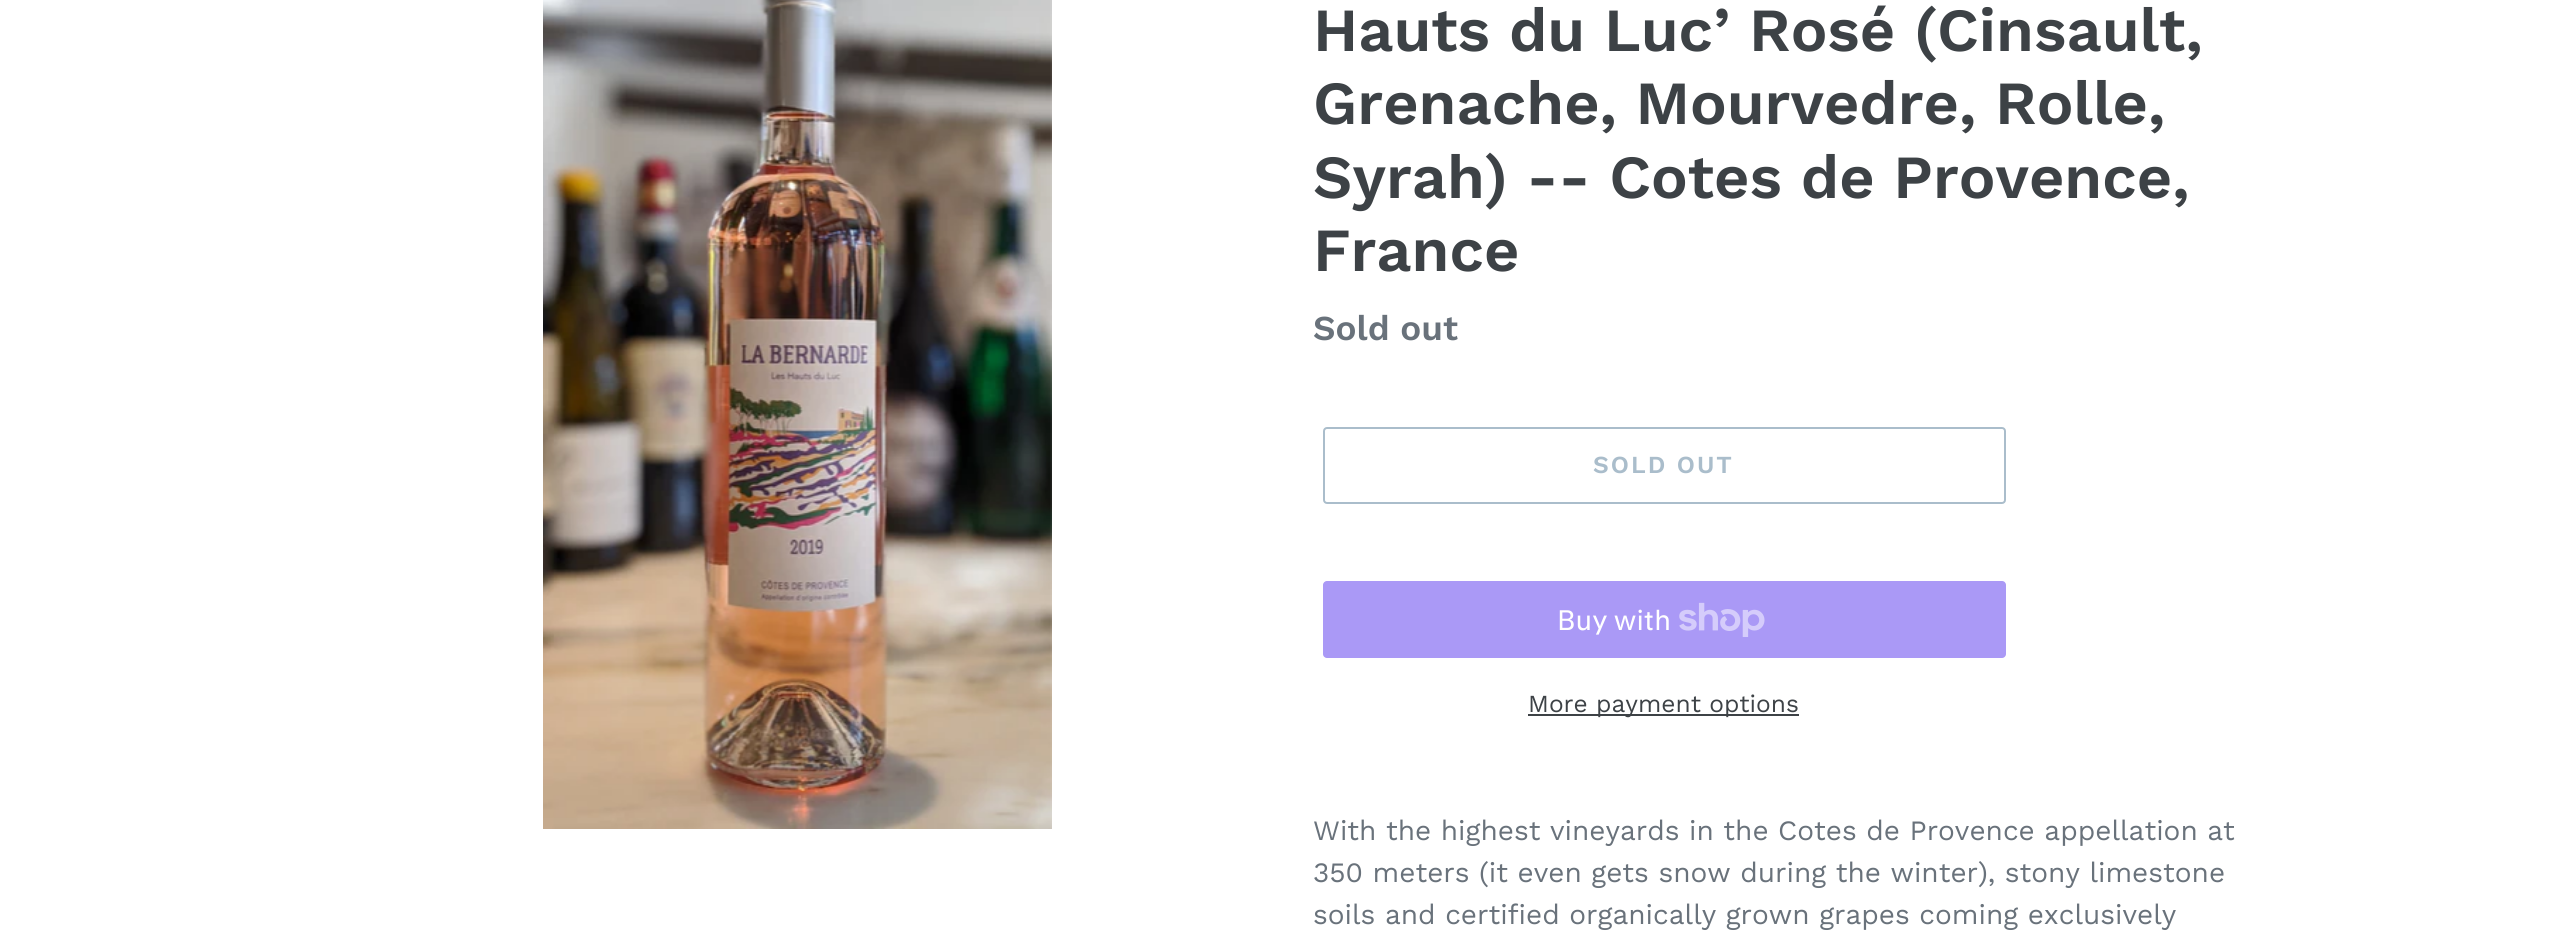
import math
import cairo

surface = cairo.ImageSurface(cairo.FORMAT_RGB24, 2573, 944)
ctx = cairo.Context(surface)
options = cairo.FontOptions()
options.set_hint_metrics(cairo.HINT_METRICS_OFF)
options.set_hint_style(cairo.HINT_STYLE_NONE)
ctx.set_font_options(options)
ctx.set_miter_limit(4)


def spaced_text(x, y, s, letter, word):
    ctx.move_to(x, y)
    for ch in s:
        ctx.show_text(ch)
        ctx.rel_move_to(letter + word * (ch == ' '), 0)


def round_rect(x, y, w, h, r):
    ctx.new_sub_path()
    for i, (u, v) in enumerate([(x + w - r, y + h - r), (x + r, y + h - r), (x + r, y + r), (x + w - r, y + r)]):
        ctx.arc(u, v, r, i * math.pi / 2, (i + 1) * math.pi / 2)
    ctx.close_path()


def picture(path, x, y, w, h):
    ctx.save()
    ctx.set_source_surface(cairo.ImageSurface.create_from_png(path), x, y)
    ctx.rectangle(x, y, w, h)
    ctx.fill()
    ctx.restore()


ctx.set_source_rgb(1, 1, 1)
ctx.paint()
picture("img1.png", 543, 0, 509, 829)
ctx.select_font_face("Work Sans SemiBold")
ctx.set_font_size(61.25)
ctx.set_source_rgb(0.239, 0.259, 0.275)
ctx.move_to(1313, 51)
ctx.show_text("Hauts du Luc’ Rosé (Cinsault,")
ctx.move_to(1313, 124)
ctx.show_text("Grenache, Mourvedre, Rolle,")
ctx.move_to(1313, 198)
ctx.show_text("Syrah) -- Cotes de Provence,")
ctx.move_to(1313, 271)
ctx.show_text("France")
ctx.set_font_size(35)
ctx.set_source_rgb(0.412, 0.447, 0.482)
ctx.move_to(1313, 340)
ctx.show_text("Sold out")
round_rect(1324, 428, 681, 75, 3)
ctx.set_source_rgb(0.667, 0.741, 0.796)
ctx.stroke()
ctx.set_font_size(24.5)
spaced_text(1593, 473, "SOLD OUT", 2, 0)
ctx.set_source_rgb(0.667, 0.6, 0.961)
round_rect(1323, 581, 683, 77, 4)
ctx.fill()
ctx.select_font_face("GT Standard")
ctx.set_font_size(28)
ctx.set_source_rgb(1, 1, 1)
ctx.move_to(1557, 630)
ctx.show_text("Buy with")
picture("img2.png", 1679, 602, 86, 35)
ctx.set_source_rgb(0.239, 0.259, 0.275)
ctx.rectangle(1528, 714, 271, 2)
ctx.fill()
ctx.select_font_face("Work Sans")
ctx.set_font_size(24.5)
ctx.move_to(1528, 712)
ctx.show_text("More payment options")
ctx.set_font_size(28)
ctx.set_source_rgb(0.412, 0.447, 0.482)
ctx.move_to(1313, 840)
ctx.show_text("With the highest vineyards in the Cotes de Provence appellation at")
ctx.move_to(1313, 882)
ctx.show_text("350 meters (it even gets snow during the winter), stony limestone")
ctx.move_to(1313, 924)
ctx.show_text("soils and certified organically grown grapes coming exclusively")
surface.write_to_png("page.png")
